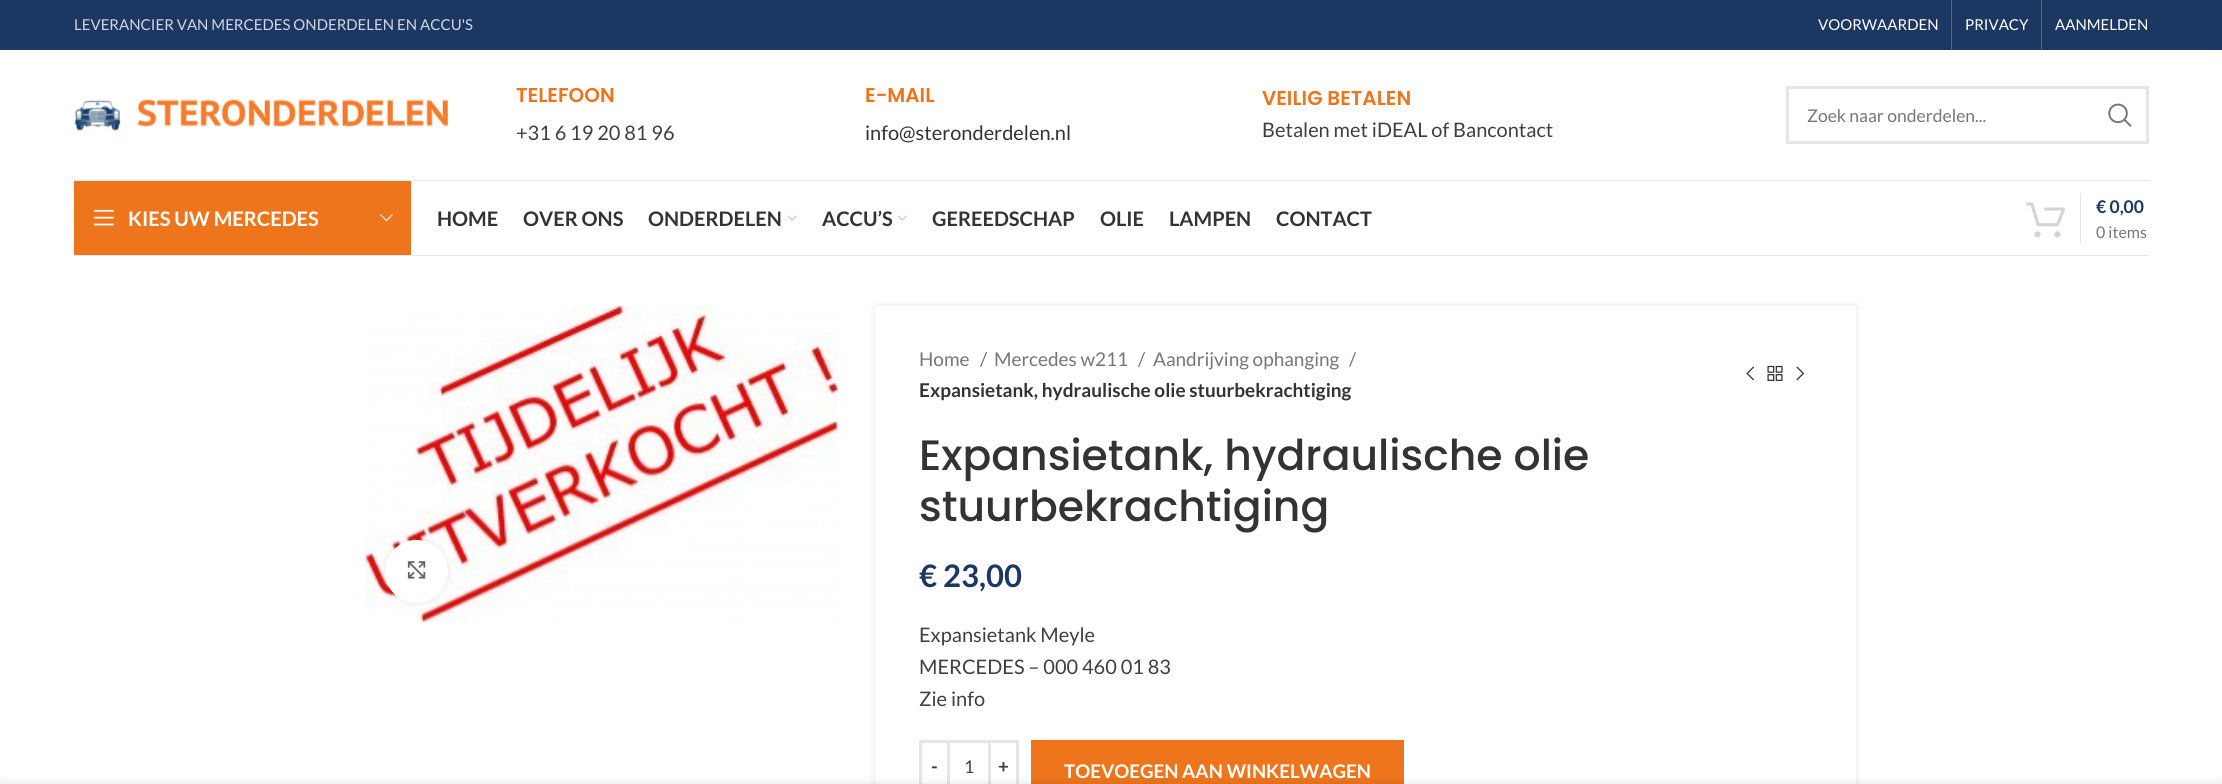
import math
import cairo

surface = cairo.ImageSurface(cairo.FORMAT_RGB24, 2222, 784)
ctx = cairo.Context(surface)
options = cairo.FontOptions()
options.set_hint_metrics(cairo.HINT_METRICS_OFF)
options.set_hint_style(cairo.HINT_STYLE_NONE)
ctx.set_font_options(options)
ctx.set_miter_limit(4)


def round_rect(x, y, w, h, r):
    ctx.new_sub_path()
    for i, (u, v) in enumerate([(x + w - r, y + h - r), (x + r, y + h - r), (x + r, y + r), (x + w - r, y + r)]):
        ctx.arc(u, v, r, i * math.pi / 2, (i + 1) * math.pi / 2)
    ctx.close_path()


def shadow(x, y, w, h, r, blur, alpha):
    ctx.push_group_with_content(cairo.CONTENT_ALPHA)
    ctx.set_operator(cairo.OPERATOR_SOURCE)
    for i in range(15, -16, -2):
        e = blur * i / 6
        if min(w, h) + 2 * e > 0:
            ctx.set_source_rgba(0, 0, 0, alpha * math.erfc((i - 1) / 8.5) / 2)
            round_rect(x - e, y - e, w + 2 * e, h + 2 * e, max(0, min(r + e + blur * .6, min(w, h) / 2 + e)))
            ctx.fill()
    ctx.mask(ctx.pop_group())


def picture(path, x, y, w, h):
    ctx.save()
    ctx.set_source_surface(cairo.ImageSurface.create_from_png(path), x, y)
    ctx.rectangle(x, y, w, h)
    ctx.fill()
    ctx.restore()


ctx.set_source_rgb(1, 1, 1)
ctx.paint()
ctx.set_source_rgb(0.106, 0.216, 0.384)
ctx.rectangle(0, 0, 2222, 50)
ctx.fill()
ctx.select_font_face("Lato")
ctx.set_font_size(15)
ctx.set_source_rgb(0.82, 0.843, 0.878)
ctx.move_to(74, 30)
ctx.show_text("LEVERANCIER VAN MERCEDES ONDERDELEN EN ACCU'S")
ctx.set_source_rgb(1, 1, 1)
ctx.move_to(1818, 30)
ctx.show_text("VOORWAARDEN")
ctx.set_source_rgb(0.329, 0.412, 0.537)
ctx.rectangle(1951, 0, 1, 50)
ctx.fill()
ctx.set_source_rgb(1, 1, 1)
ctx.move_to(1965, 30)
ctx.show_text("PRIVACY")
ctx.set_source_rgb(0.329, 0.412, 0.537)
ctx.rectangle(2041, 0, 1, 50)
ctx.fill()
ctx.set_source_rgb(1, 1, 1)
ctx.move_to(2055, 30)
ctx.show_text("AANMELDEN")
ctx.set_source_rgb(0.91, 0.91, 0.91)
ctx.rectangle(74, 180, 2075, 1)
ctx.fill()
picture("img1.png", 74, 99, 374, 32)
ctx.select_font_face("Poppins SemiBold")
ctx.set_font_size(20)
ctx.set_source_rgb(0.933, 0.459, 0.11)
ctx.move_to(516, 102)
ctx.show_text("TELEFOON")
ctx.select_font_face("Lato")
ctx.set_source_rgb(0.247, 0.247, 0.247)
ctx.move_to(516, 140)
ctx.show_text("+31 6 19 20 81 96")
ctx.select_font_face("Poppins SemiBold")
ctx.set_source_rgb(0.933, 0.459, 0.11)
ctx.move_to(865, 102)
ctx.show_text("E-MAIL")
ctx.select_font_face("Lato")
ctx.set_source_rgb(0.2, 0.2, 0.2)
ctx.move_to(865, 140)
ctx.show_text("info@steronderdelen.nl")
ctx.select_font_face("Poppins SemiBold")
ctx.set_source_rgb(0.933, 0.459, 0.11)
ctx.move_to(1262, 105)
ctx.show_text("VEILIG BETALEN")
ctx.select_font_face("Lato")
ctx.set_source_rgb(0.247, 0.247, 0.247)
ctx.move_to(1262, 137)
ctx.show_text("Betalen met iDEAL of Bancontact")
ctx.rectangle(1787.5, 87.5, 360, 55)
ctx.set_source_rgb(0.902, 0.902, 0.902)
ctx.set_line_width(3)
ctx.stroke()
ctx.set_font_size(17.5)
ctx.set_source_rgb(0.463, 0.463, 0.463)
ctx.move_to(1807, 122)
ctx.show_text("Zoek naar onderdelen...")
picture("img2.png", 2108, 103, 24, 24)
ctx.set_source_rgb(0.91, 0.91, 0.91)
ctx.rectangle(74, 255, 2075, 1)
ctx.fill()
ctx.set_source_rgb(0.933, 0.459, 0.11)
ctx.rectangle(74, 181, 337, 74)
ctx.fill()
picture("img3.png", 93, 209, 21, 17)
ctx.select_font_face("Lato", cairo.FONT_SLANT_NORMAL, cairo.FONT_WEIGHT_BOLD)
ctx.set_font_size(20)
ctx.set_source_rgb(1, 1, 1)
ctx.move_to(128, 226)
ctx.show_text("KIES UW MERCEDES")
picture("img4.png", 380, 214, 13, 8)
ctx.set_source_rgb(0.2, 0.2, 0.2)
ctx.move_to(437, 226)
ctx.show_text("HOME")
ctx.move_to(523, 226)
ctx.show_text("OVER ONS")
ctx.move_to(648, 226)
ctx.show_text("ONDERDELEN")
picture("img5.png", 787, 215, 10, 6)
ctx.move_to(822, 226)
ctx.show_text("ACCU’S")
picture("img5.png", 897, 215, 10, 6)
ctx.move_to(932, 226)
ctx.show_text("GEREEDSCHAP")
ctx.move_to(1100, 226)
ctx.show_text("OLIE")
ctx.move_to(1169, 226)
ctx.show_text("LAMPEN")
ctx.move_to(1276, 226)
ctx.show_text("CONTACT")
picture("img6.png", 2026, 202, 39, 36)
ctx.set_source_rgb(0.902, 0.902, 0.902)
ctx.rectangle(2080, 193, 1, 51)
ctx.fill()
ctx.set_font_size(17.5)
ctx.set_source_rgb(0.106, 0.216, 0.384)
ctx.move_to(2096, 213)
ctx.show_text("€ 0,00")
ctx.select_font_face("Lato")
ctx.set_font_size(16)
ctx.set_source_rgb(0.463, 0.463, 0.463)
ctx.move_to(2096, 238)
ctx.show_text("0 items")
picture("img7.png", 366, 306, 472, 316)
ctx.set_source_rgb(0, 0, 0)
shadow(385, 540, 63, 63, 31.5, 3, 0.08)
ctx.set_source_rgb(1, 1, 1)
ctx.arc(416.5, 571.5, 31.5, 0, 2 * math.pi)
ctx.fill()
picture("img8.png", 407, 561, 19, 18)
ctx.set_source_rgb(0, 0, 0)
shadow(875, 306, 981, 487, 0, 3, 0.1)
ctx.set_source_rgb(1, 1, 1)
ctx.rectangle(875, 306, 981, 478)
ctx.fill()
ctx.set_font_size(19)
ctx.set_source_rgb(0.463, 0.463, 0.463)
ctx.move_to(919, 366)
ctx.show_text("Home")
ctx.move_to(980, 366)
ctx.show_text("/")
ctx.move_to(994, 366)
ctx.show_text("Mercedes w211")
ctx.move_to(1138, 366)
ctx.show_text("/")
ctx.move_to(1153, 366)
ctx.show_text("Aandrijving ophanging")
ctx.move_to(1349, 366)
ctx.show_text("/")
ctx.select_font_face("Lato", cairo.FONT_SLANT_NORMAL, cairo.FONT_WEIGHT_BOLD)
ctx.set_source_rgb(0.2, 0.2, 0.2)
ctx.move_to(919, 397)
ctx.show_text("Expansietank, hydraulische olie stuurbekrachtiging")
picture("img9.png", 1746, 366, 8, 15)
picture("img10.png", 1767, 365, 16, 16)
picture("img11.png", 1796, 366, 8, 15)
ctx.select_font_face("Poppins Medium")
ctx.set_font_size(42.5)
ctx.move_to(919, 470)
ctx.show_text("Expansietank, hydraulische olie")
ctx.move_to(919, 521)
ctx.show_text("stuurbekrachtiging")
ctx.select_font_face("Lato", cairo.FONT_SLANT_NORMAL, cairo.FONT_WEIGHT_BOLD)
ctx.set_font_size(31)
ctx.set_source_rgb(0.106, 0.216, 0.384)
ctx.move_to(919, 587)
ctx.show_text("€ 23,00")
ctx.select_font_face("Lato")
ctx.set_font_size(20)
ctx.set_source_rgb(0.247, 0.247, 0.247)
ctx.move_to(919, 642)
ctx.show_text("Expansietank Meyle")
ctx.move_to(919, 674)
ctx.show_text("MERCEDES – 000 460 01 83")
ctx.move_to(919, 706)
ctx.show_text("Zie info")
ctx.rectangle(920.5, 741.5, 28, 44)
ctx.set_source_rgb(0.902, 0.902, 0.902)
ctx.stroke()
ctx.select_font_face("Lato", cairo.FONT_SLANT_NORMAL, cairo.FONT_WEIGHT_BOLD)
ctx.set_font_size(18.75)
ctx.set_source_rgb(0.247, 0.247, 0.247)
ctx.move_to(931, 773)
ctx.show_text("-")
ctx.set_source_rgb(0.902, 0.902, 0.902)
ctx.rectangle(950, 740, 38, 3)
ctx.fill()
ctx.select_font_face("Lato")
ctx.set_font_size(17.5)
ctx.set_source_rgb(0.247, 0.247, 0.247)
ctx.move_to(964, 773)
ctx.show_text("1")
ctx.rectangle(989.5, 741.5, 28, 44)
ctx.set_source_rgb(0.902, 0.902, 0.902)
ctx.stroke()
ctx.select_font_face("Lato", cairo.FONT_SLANT_NORMAL, cairo.FONT_WEIGHT_BOLD)
ctx.set_font_size(18.75)
ctx.set_source_rgb(0.247, 0.247, 0.247)
ctx.move_to(998, 773)
ctx.show_text("+")
ctx.set_source_rgb(0.933, 0.459, 0.11)
ctx.rectangle(1031, 740, 373, 44)
ctx.fill()
ctx.set_source_rgb(1, 1, 1)
ctx.move_to(1064, 778)
ctx.show_text("TOEVOEGEN AAN WINKELWAGEN")
ctx.set_source_rgb(0, 0, 0)
shadow(0, 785, 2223, 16, 0, 5.5, 0.14)
surface.write_to_png("page.png")
